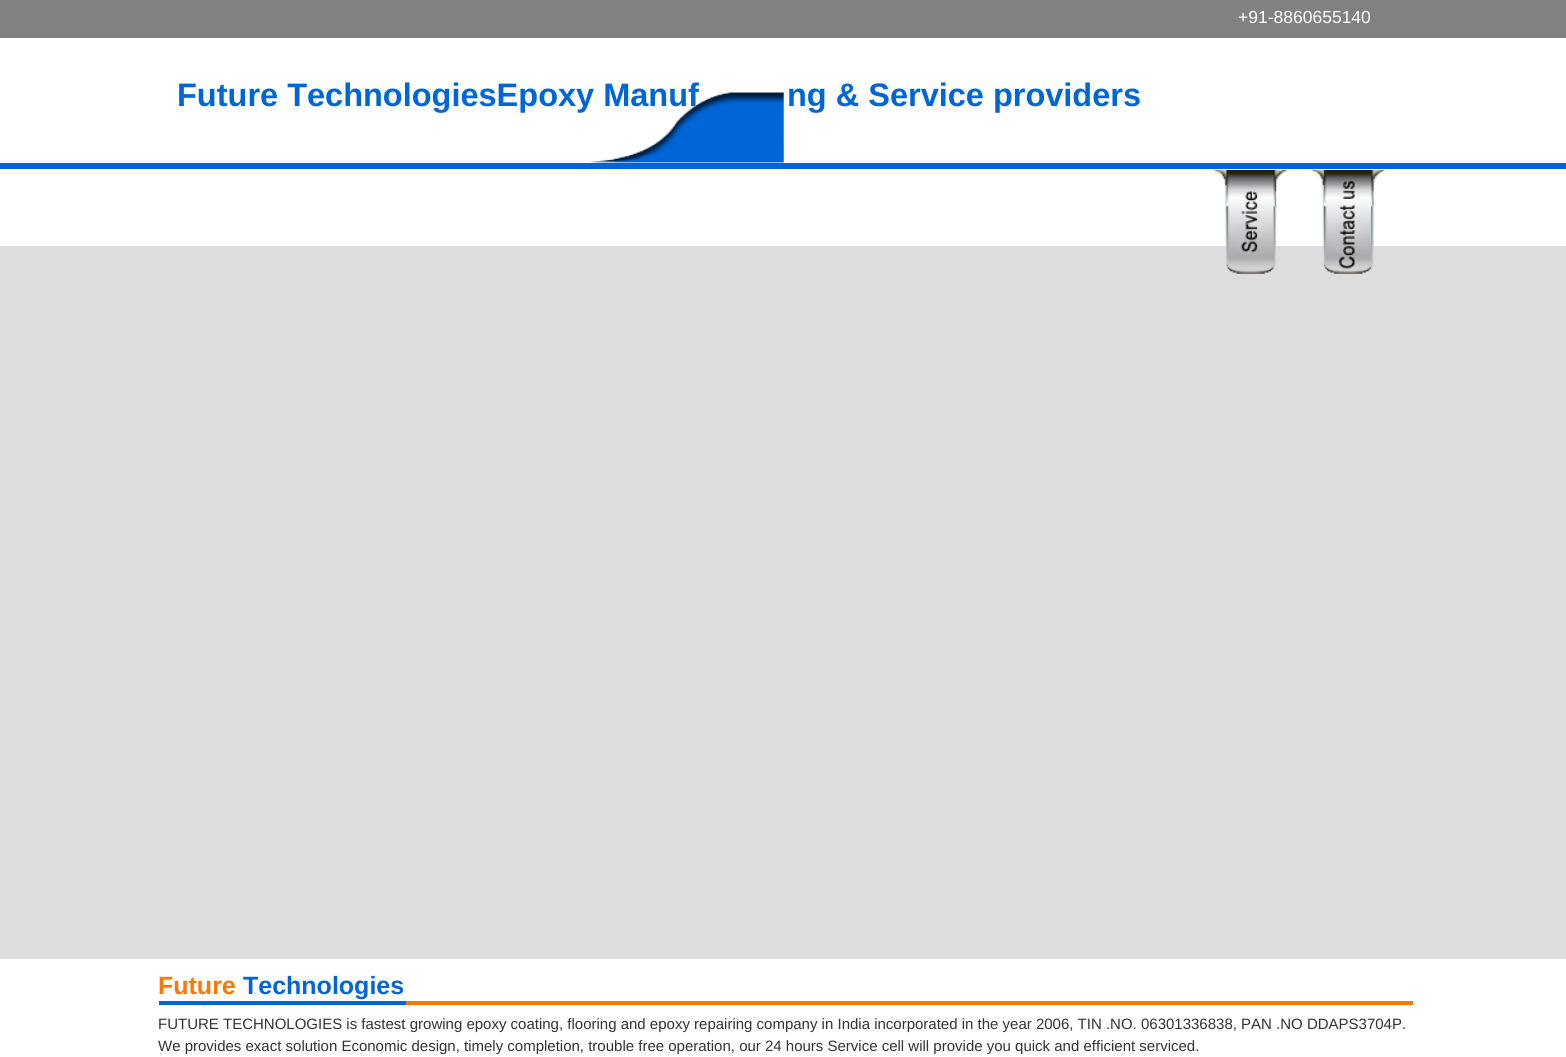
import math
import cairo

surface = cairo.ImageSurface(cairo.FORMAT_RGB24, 1566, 1057)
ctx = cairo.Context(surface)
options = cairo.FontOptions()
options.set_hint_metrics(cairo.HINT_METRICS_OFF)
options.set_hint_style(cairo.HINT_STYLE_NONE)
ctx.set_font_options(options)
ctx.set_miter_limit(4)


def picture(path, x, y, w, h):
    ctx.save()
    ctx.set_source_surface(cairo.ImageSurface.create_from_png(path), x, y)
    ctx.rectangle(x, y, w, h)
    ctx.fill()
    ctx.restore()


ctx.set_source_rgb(1, 1, 1)
ctx.paint()
ctx.set_source_rgb(0.506, 0.506, 0.506)
ctx.rectangle(0, 0, 1566, 38)
ctx.fill()
ctx.select_font_face("Liberation Sans")
ctx.set_font_size(17.5)
ctx.set_source_rgb(1, 1, 1)
ctx.move_to(1238, 23)
ctx.show_text("+91-8860655140")
ctx.set_source_rgb(0, 0.396, 0.843)
ctx.rectangle(0, 163, 1566, 6)
ctx.fill()
ctx.select_font_face("Liberation Sans", cairo.FONT_SLANT_NORMAL, cairo.FONT_WEIGHT_BOLD)
ctx.set_font_size(32.5)
ctx.move_to(177, 106)
ctx.show_text("Future TechnologiesEpoxy Manuf")
ctx.move_to(787, 106)
ctx.show_text("ng & Service providers")
picture("img1.png", 589, 92, 195, 71)
ctx.set_source_rgb(0.867, 0.867, 0.867)
ctx.rectangle(0, 246, 1566, 713)
ctx.fill()
picture("img2.png", 1213, 170, 75, 105)
picture("img3.png", 1311, 170, 74, 105)
ctx.set_font_size(25)
ctx.set_source_rgb(1, 0.467, 0)
ctx.move_to(158, 994)
ctx.show_text("Future")
ctx.set_source_rgb(0, 0.396, 0.843)
ctx.move_to(243, 994)
ctx.show_text("Technologies")
ctx.rectangle(159, 1001, 250, 4)
ctx.fill()
ctx.set_source_rgb(1, 0.467, 0)
ctx.rectangle(406, 1001, 1007, 4)
ctx.fill()
ctx.select_font_face("Liberation Sans")
ctx.set_font_size(15)
ctx.set_source_rgb(0.2, 0.2, 0.2)
ctx.move_to(158, 1029)
ctx.show_text("FUTURE TECHNOLOGIES is fastest growing epoxy coating, flooring and epoxy repairing company in India incorporated in the year 2006, TIN .NO. 06301336838, PAN .NO DDAPS3704P.")
ctx.move_to(158, 1051)
ctx.show_text("We provides exact solution Economic design, timely completion, trouble free operation, our 24 hours Service cell will provide you quick and efficient serviced.")
surface.write_to_png("page.png")
